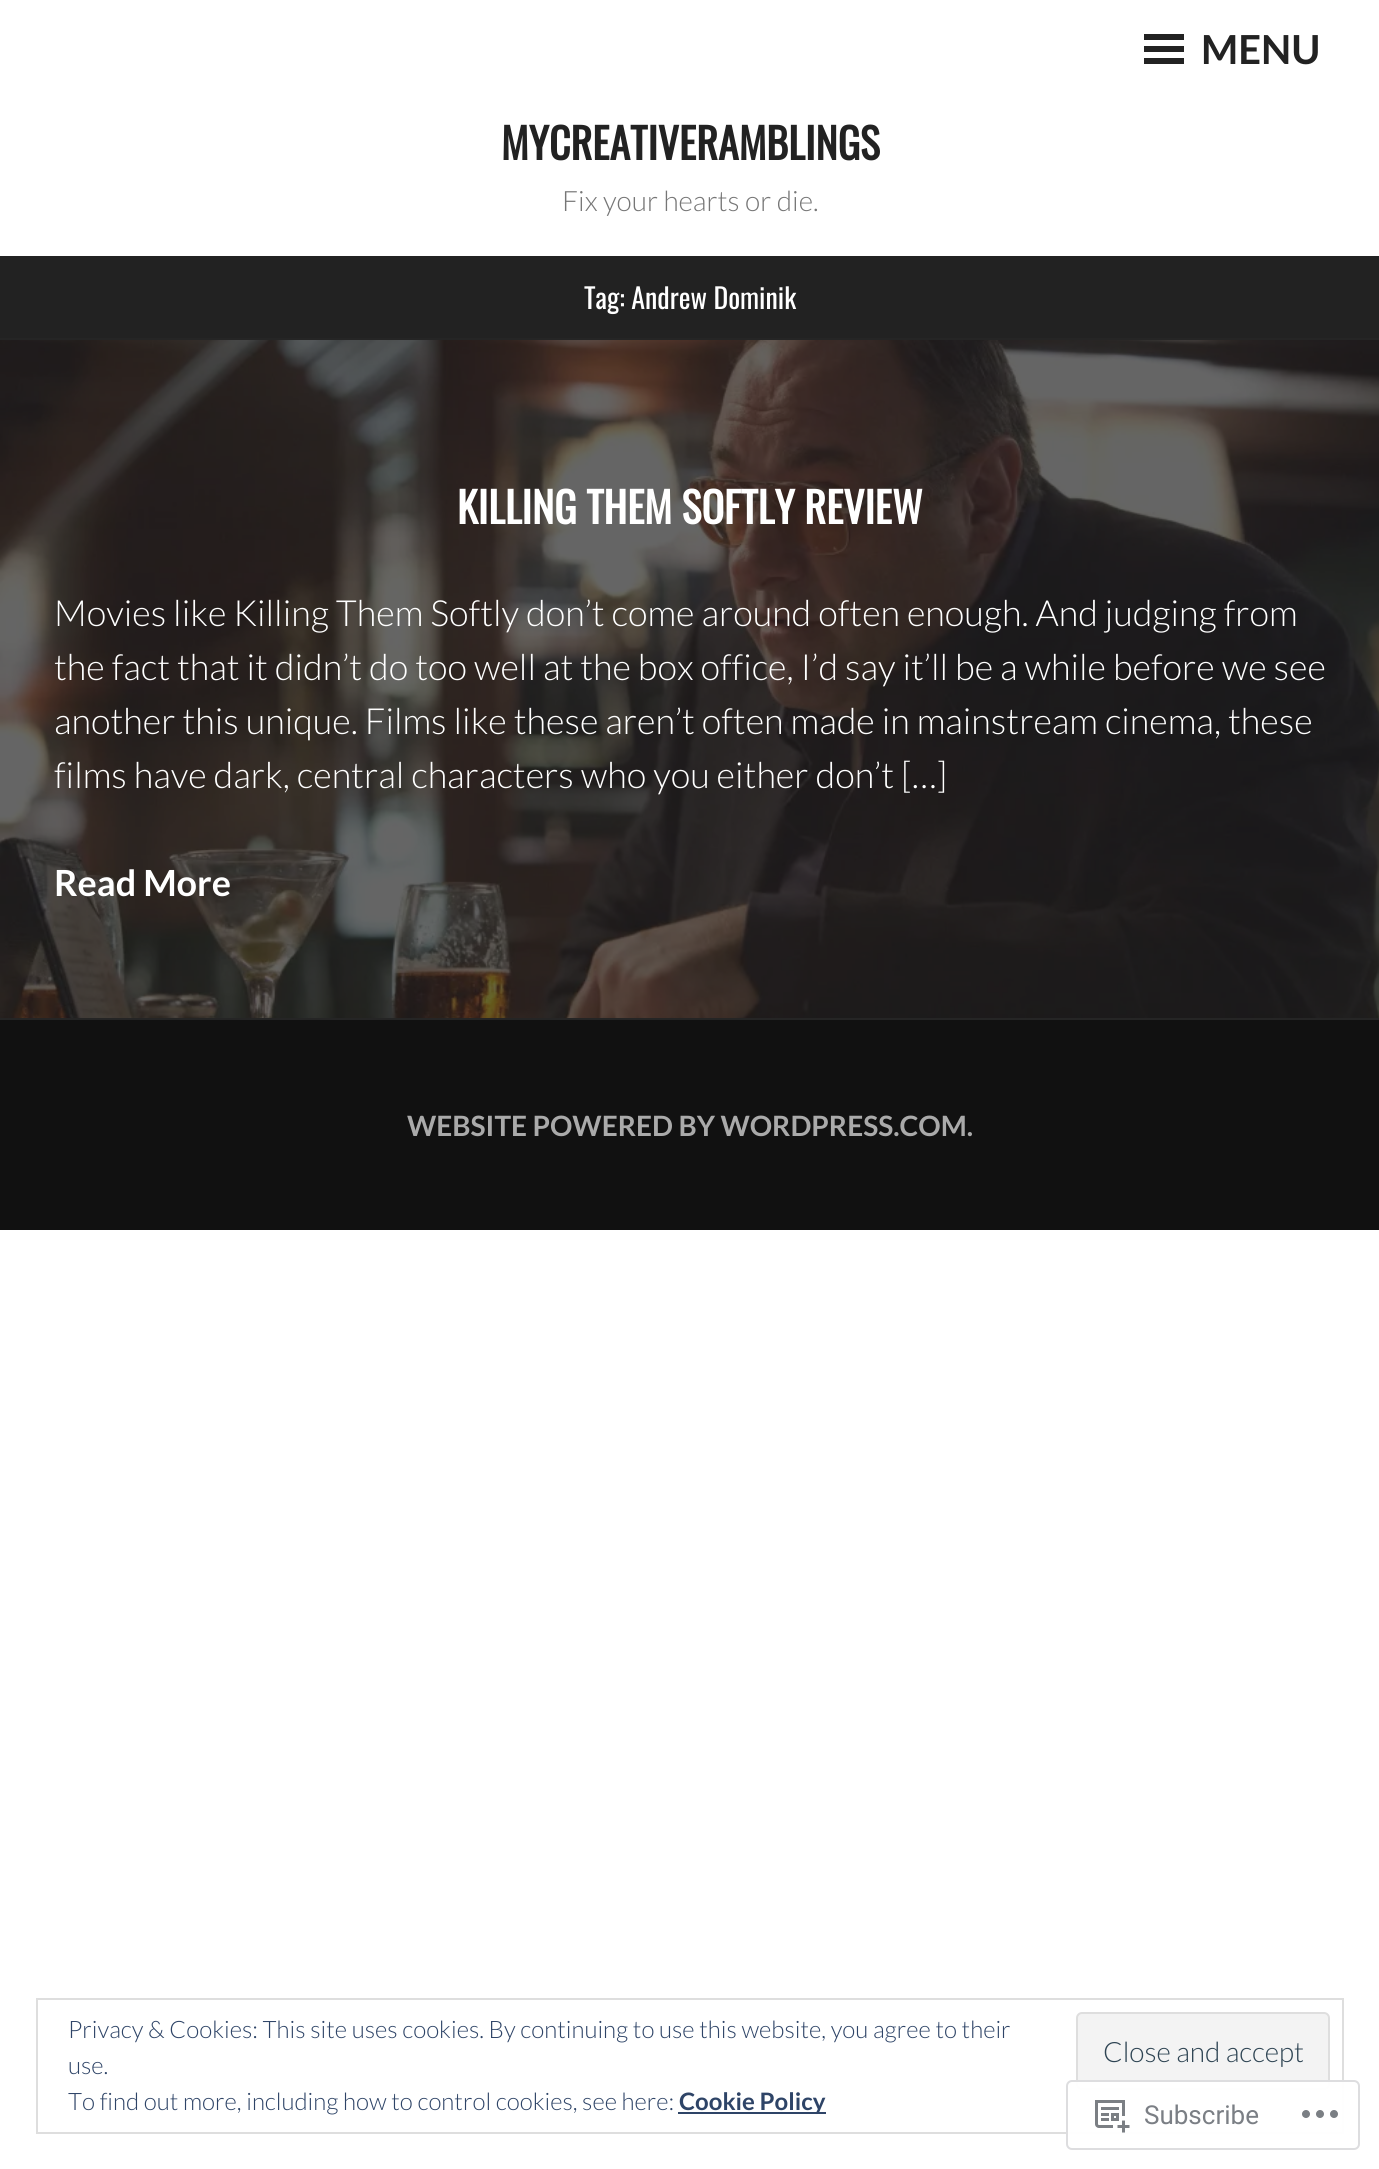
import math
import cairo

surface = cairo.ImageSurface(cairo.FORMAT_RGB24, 1379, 2169)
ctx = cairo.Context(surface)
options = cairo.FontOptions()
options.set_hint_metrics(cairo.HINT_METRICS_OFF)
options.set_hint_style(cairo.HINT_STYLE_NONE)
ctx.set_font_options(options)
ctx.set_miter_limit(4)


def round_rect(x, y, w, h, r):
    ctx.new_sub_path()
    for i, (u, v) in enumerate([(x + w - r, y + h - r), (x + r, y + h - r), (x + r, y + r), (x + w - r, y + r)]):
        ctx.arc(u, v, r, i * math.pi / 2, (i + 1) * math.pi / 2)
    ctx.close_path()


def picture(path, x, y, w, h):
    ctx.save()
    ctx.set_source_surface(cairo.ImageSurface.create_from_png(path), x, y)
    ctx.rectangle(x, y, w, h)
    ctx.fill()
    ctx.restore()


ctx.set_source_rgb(1, 1, 1)
ctx.paint()
ctx.set_source_rgb(0.133, 0.133, 0.133)
ctx.rectangle(1144, 46, 40, 6)
ctx.fill()
ctx.rectangle(1144, 34, 40, 6)
ctx.fill()
ctx.rectangle(1144, 58, 40, 6)
ctx.fill()
ctx.select_font_face("Lato", cairo.FONT_SLANT_NORMAL, cairo.FONT_WEIGHT_BOLD)
ctx.set_font_size(40)
ctx.move_to(1201, 64)
ctx.show_text("MENU")
ctx.select_font_face("Oswald", cairo.FONT_SLANT_NORMAL, cairo.FONT_WEIGHT_BOLD)
ctx.set_font_size(42)
ctx.move_to(501, 160)
ctx.show_text("MYCREATIVERAMBLINGS")
ctx.select_font_face("Lato Light")
ctx.set_font_size(28)
ctx.set_source_rgb(0.463, 0.463, 0.463)
ctx.move_to(562, 211)
ctx.show_text("Fix your hearts or die.")
ctx.set_source_rgb(0.133, 0.133, 0.133)
ctx.rectangle(0, 256, 1379, 82)
ctx.fill()
ctx.set_source_rgb(0.145, 0.145, 0.145)
ctx.rectangle(0, 338, 1379, 2)
ctx.fill()
ctx.select_font_face("Oswald")
ctx.set_source_rgb(1, 1, 1)
ctx.move_to(584, 309)
ctx.show_text("Tag: Andrew Dominik")
ctx.set_source_rgb(0.133, 0.133, 0.133)
ctx.rectangle(0, 340, 1379, 678)
ctx.fill()
ctx.set_source_rgb(0.145, 0.145, 0.145)
ctx.rectangle(0, 1018, 1379, 2)
ctx.fill()
picture("img1.png", 0, 340, 1379, 678)
ctx.select_font_face("Oswald", cairo.FONT_SLANT_NORMAL, cairo.FONT_WEIGHT_BOLD)
ctx.set_font_size(42)
ctx.set_source_rgb(1, 1, 1)
ctx.move_to(457, 524)
ctx.show_text("KILLING THEM SOFTLY REVIEW")
ctx.select_font_face("Lato Light")
ctx.set_font_size(36)
ctx.move_to(54, 626)
ctx.show_text("Movies like Killing Them Softly don’t come around often enough. And judging from")
ctx.move_to(54, 680)
ctx.show_text("the fact that it didn’t do too well at the box office, I’d say it’ll be a while before we see")
ctx.move_to(54, 734)
ctx.show_text("another this unique. Films like these aren’t often made in mainstream cinema, these")
ctx.move_to(54, 788)
ctx.show_text("films have dark, central characters who you either don’t […]")
ctx.select_font_face("Lato", cairo.FONT_SLANT_NORMAL, cairo.FONT_WEIGHT_BOLD)
ctx.move_to(54, 896)
ctx.show_text("Read More")
ctx.set_source_rgb(0.067, 0.067, 0.067)
ctx.rectangle(0, 1020, 1379, 210)
ctx.fill()
ctx.set_font_size(28)
ctx.set_source_rgb(0.667, 0.667, 0.667)
ctx.move_to(407, 1136)
ctx.show_text("WEBSITE POWERED BY WORDPRESS.COM.")
ctx.rectangle(37, 1999, 1306, 134)
ctx.set_source_rgb(0.871, 0.871, 0.871)
ctx.stroke()
ctx.select_font_face("Lato Light")
ctx.set_font_size(24)
ctx.set_source_rgb(0.18, 0.267, 0.404)
ctx.move_to(68, 2038)
ctx.show_text("Privacy & Cookies: This site uses cookies. By continuing to use this website, you agree to their")
ctx.move_to(68, 2074)
ctx.show_text("use.")
ctx.set_source_rgb(0.953, 0.953, 0.953)
round_rect(1077, 2013, 252, 76, 5)
ctx.fill_preserve()
ctx.set_source_rgb(0.871, 0.871, 0.871)
ctx.stroke()
ctx.set_font_size(28)
ctx.set_source_rgb(0.18, 0.267, 0.325)
ctx.move_to(1103, 2062)
ctx.show_text("Close and accept")
ctx.set_font_size(24)
ctx.set_source_rgb(0.18, 0.267, 0.404)
ctx.move_to(68, 2110)
ctx.show_text("To find out more, including how to control cookies, see here:")
ctx.rectangle(678, 2112, 148, 2)
ctx.fill()
ctx.select_font_face("Lato", cairo.FONT_SLANT_NORMAL, cairo.FONT_WEIGHT_BOLD)
ctx.move_to(679, 2110)
ctx.show_text("Cookie Policy")
ctx.set_source_rgba(1, 1, 1, 0.98)
round_rect(1067, 2081, 292, 68, 5)
ctx.fill_preserve()
ctx.set_source_rgb(0.867, 0.867, 0.875)
ctx.stroke()
picture("img2.png", 1095, 2100, 35, 33)
ctx.select_font_face("Roboto")
ctx.set_font_size(26)
ctx.set_source_rgb(0.482, 0.498, 0.522)
ctx.move_to(1144, 2124)
ctx.show_text("Subscribe")
picture("img3.png", 1302, 2110, 36, 8)
surface.write_to_png("page.png")
